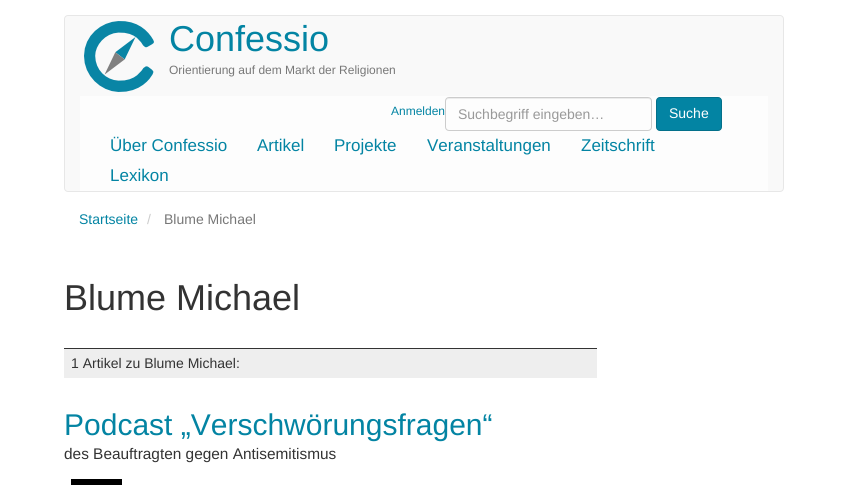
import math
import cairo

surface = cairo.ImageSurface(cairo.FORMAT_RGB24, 848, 485)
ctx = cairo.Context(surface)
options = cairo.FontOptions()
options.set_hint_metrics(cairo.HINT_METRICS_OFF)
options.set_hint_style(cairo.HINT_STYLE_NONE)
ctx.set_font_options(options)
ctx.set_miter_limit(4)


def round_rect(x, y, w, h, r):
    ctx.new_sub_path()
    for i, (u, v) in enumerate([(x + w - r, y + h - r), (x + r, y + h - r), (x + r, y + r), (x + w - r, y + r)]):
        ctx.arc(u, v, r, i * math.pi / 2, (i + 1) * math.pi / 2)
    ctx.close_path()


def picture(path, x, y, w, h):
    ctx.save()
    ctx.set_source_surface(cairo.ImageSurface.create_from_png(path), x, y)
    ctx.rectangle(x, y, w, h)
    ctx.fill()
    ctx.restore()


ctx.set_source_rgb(1, 1, 1)
ctx.paint()
ctx.set_source_rgb(0.973, 0.973, 0.973)
round_rect(64.5, 15.5, 719, 176, 3.5)
ctx.fill_preserve()
ctx.set_source_rgb(0.906, 0.906, 0.906)
ctx.set_line_width(1)
ctx.stroke()
picture("img1.png", 84, 21, 70, 71)
ctx.select_font_face("Liberation Sans")
ctx.set_font_size(36)
ctx.set_source_rgb(0.012, 0.518, 0.639)
ctx.move_to(169, 51)
ctx.show_text("Confessio")
ctx.set_font_size(12)
ctx.set_source_rgb(0.467, 0.467, 0.467)
ctx.move_to(169, 74)
ctx.show_text("Orientierung auf dem Markt der Religionen")
ctx.set_source_rgb(0.992, 0.992, 0.992)
ctx.rectangle(80, 96, 688, 95)
ctx.fill()
ctx.set_source_rgb(0.925, 0.925, 0.925)
ctx.new_path()
ctx.move_to(449, 99)
ctx.line_to(648, 99)
ctx.curve_to(650, 99, 651, 100, 651, 102)
ctx.curve_to(651, 100, 650, 98, 648, 98)
ctx.line_to(449, 98)
ctx.curve_to(447, 98, 446, 100, 446, 102)
ctx.curve_to(446, 100, 447, 99, 449, 99)
ctx.close_path()
ctx.fill()
round_rect(445.5, 97.5, 206, 33, 3.5)
ctx.set_source_rgb(0.8, 0.8, 0.8)
ctx.stroke()
ctx.set_font_size(14)
ctx.set_source_rgb(0.6, 0.6, 0.6)
ctx.move_to(458, 119)
ctx.show_text("Suchbegriff eingeben…")
ctx.set_source_rgb(0.012, 0.518, 0.639)
round_rect(656.5, 97.5, 65, 33, 3.5)
ctx.fill_preserve()
ctx.set_source_rgb(0.012, 0.439, 0.541)
ctx.stroke()
ctx.set_source_rgb(1, 1, 1)
ctx.move_to(669, 118)
ctx.show_text("Suche")
ctx.set_font_size(12)
ctx.set_source_rgb(0.012, 0.518, 0.639)
ctx.move_to(391, 115)
ctx.show_text("Anmelden")
ctx.set_font_size(17)
ctx.move_to(110, 151)
ctx.show_text("Über Confessio")
ctx.move_to(257, 151)
ctx.show_text("Artikel")
ctx.move_to(334, 151)
ctx.show_text("Projekte")
ctx.move_to(427, 151)
ctx.show_text("Veranstaltungen")
ctx.move_to(581, 151)
ctx.show_text("Zeitschrift")
ctx.move_to(110, 181)
ctx.show_text("Lexikon")
ctx.set_font_size(14)
ctx.move_to(79, 224)
ctx.show_text("Startseite")
ctx.set_source_rgb(0.8, 0.8, 0.8)
ctx.move_to(147, 224)
ctx.show_text("/")
ctx.set_source_rgb(0.467, 0.467, 0.467)
ctx.move_to(164, 224)
ctx.show_text("Blume Michael")
ctx.set_font_size(36)
ctx.set_source_rgb(0.2, 0.2, 0.2)
ctx.move_to(64, 310)
ctx.show_text("Blume Michael")
ctx.set_source_rgb(0.933, 0.933, 0.933)
ctx.rectangle(64, 349, 533, 29)
ctx.fill()
ctx.set_source_rgb(0.2, 0.2, 0.2)
ctx.rectangle(64, 348, 533, 1)
ctx.fill()
ctx.set_font_size(14)
ctx.move_to(71, 368)
ctx.show_text("1 Artikel zu Blume Michael:")
ctx.set_font_size(30)
ctx.set_source_rgb(0.012, 0.518, 0.639)
ctx.move_to(64, 435)
ctx.show_text("Podcast „Verschwörungsfragen“")
ctx.set_font_size(15.4)
ctx.set_source_rgb(0.2, 0.2, 0.2)
ctx.move_to(64, 459)
ctx.show_text("des Beauftragten gegen Antisemitismus")
ctx.set_source_rgb(0, 0, 0)
ctx.rectangle(71, 479, 51, 6)
ctx.fill()
surface.write_to_png("page.png")
